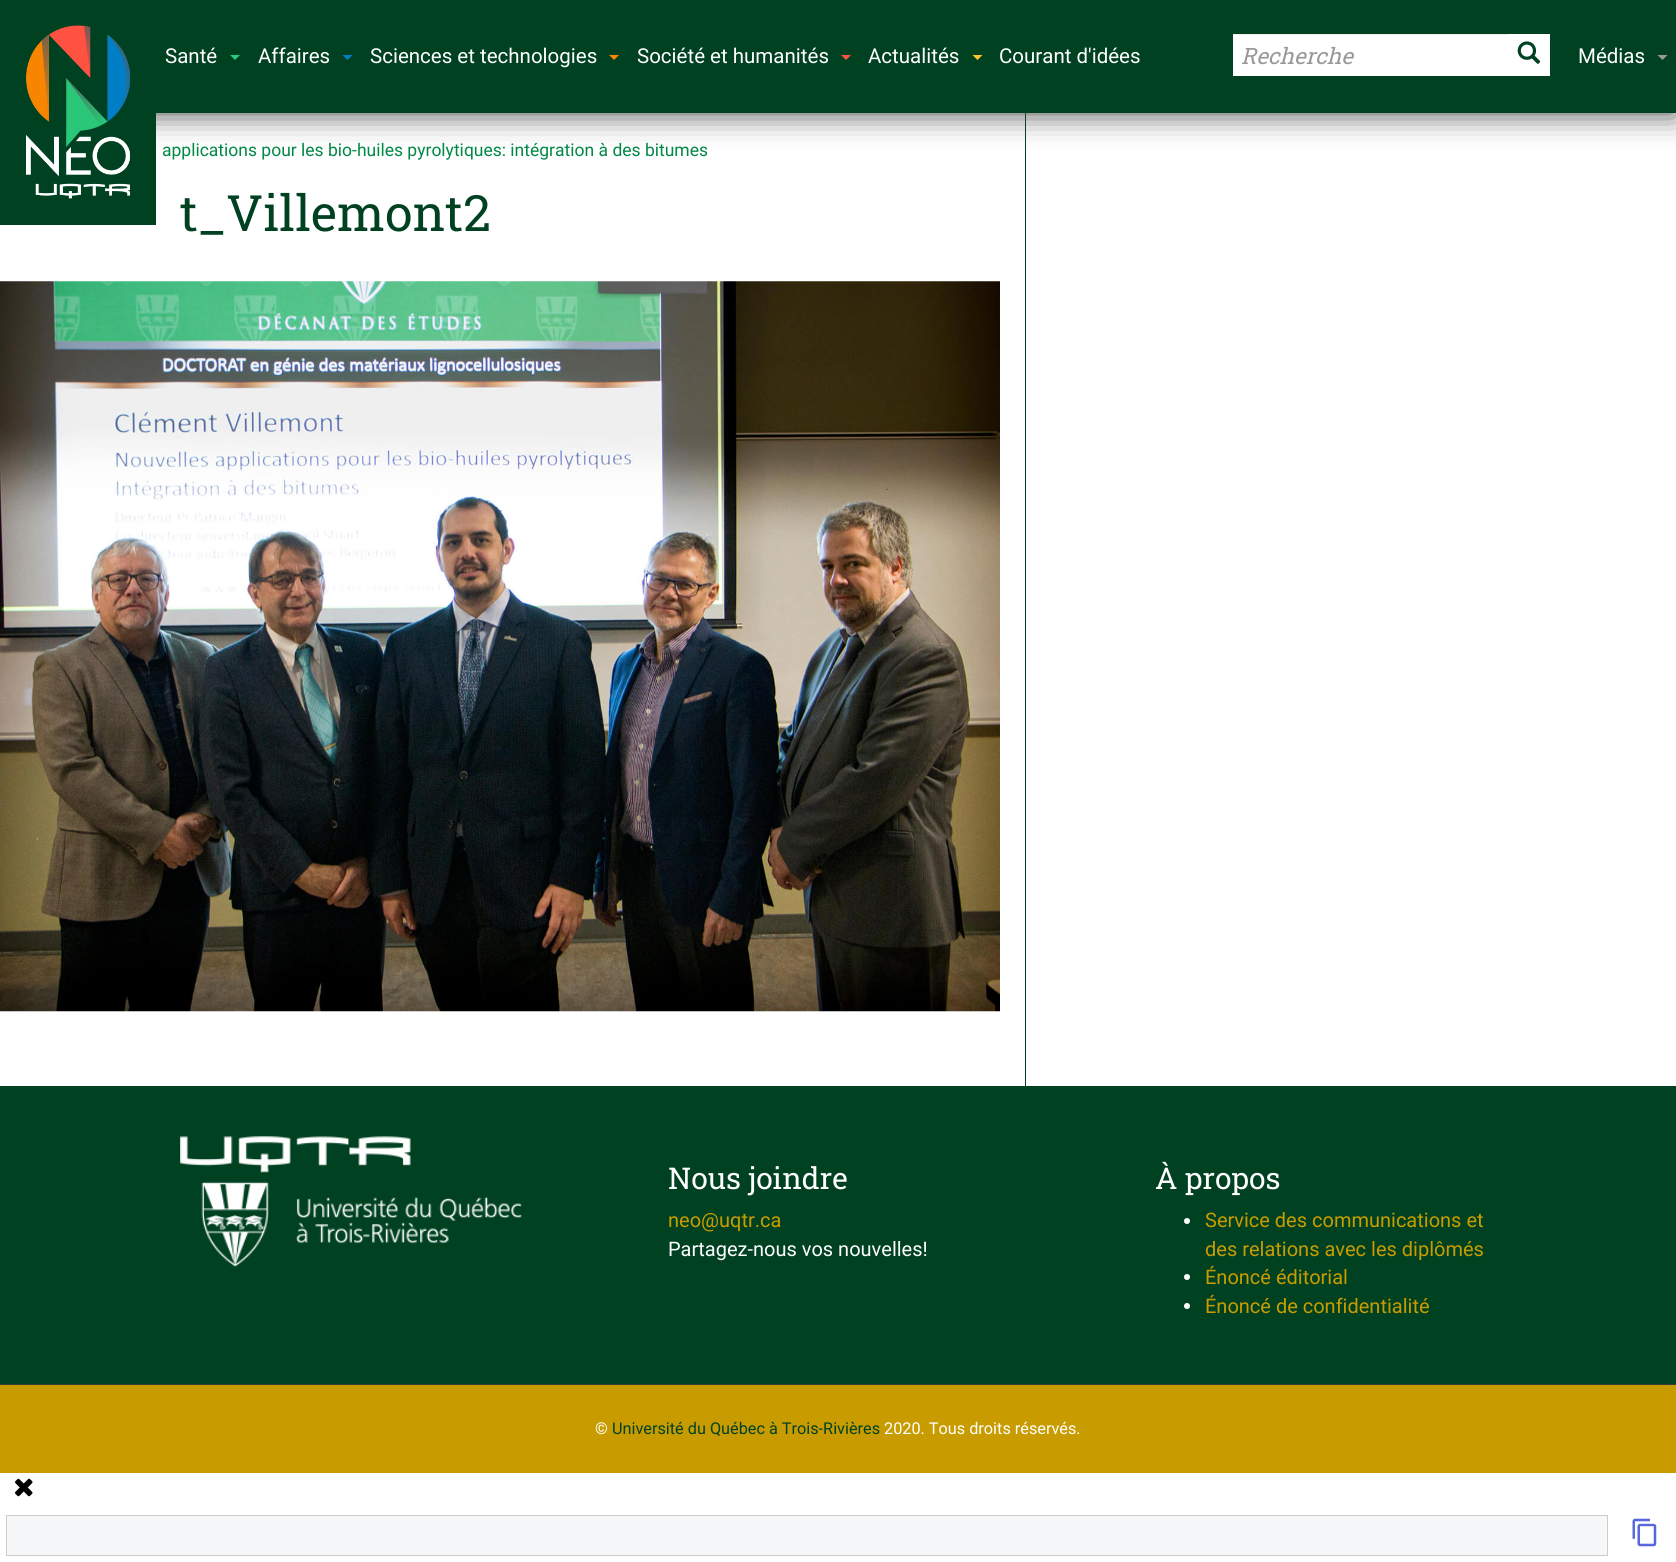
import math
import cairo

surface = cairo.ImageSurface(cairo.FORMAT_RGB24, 1676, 1562)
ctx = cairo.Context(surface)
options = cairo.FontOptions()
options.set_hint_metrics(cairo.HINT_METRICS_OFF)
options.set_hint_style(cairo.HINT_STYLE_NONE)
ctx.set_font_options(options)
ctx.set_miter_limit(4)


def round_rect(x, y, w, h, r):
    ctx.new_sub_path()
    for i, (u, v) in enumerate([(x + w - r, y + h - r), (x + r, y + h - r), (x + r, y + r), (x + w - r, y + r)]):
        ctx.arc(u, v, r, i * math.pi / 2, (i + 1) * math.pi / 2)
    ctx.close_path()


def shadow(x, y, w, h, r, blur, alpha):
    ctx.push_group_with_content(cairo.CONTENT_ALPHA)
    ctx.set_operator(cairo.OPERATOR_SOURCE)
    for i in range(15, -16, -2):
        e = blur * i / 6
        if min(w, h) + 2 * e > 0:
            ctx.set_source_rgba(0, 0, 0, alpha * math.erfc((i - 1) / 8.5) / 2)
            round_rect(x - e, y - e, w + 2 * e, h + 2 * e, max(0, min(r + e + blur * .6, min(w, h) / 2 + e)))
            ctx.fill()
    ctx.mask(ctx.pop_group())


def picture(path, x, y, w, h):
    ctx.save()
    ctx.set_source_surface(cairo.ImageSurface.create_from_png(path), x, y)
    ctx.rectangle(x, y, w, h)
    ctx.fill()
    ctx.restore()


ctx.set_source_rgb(1, 1, 1)
ctx.paint()
ctx.set_source_rgb(0, 0.255, 0.129)
ctx.rectangle(1025, 113, 1, 973)
ctx.fill()
ctx.set_source_rgb(0.251, 0.251, 0.251)
shadow(0, 0, 1676, 113, 0, 15.5, 1)
ctx.set_source_rgb(0, 0.255, 0.129)
ctx.rectangle(156, 0, 1520, 113)
ctx.fill()
ctx.rectangle(0, 0, 156, 225)
ctx.fill()
picture("img1.png", 26, 25, 104, 174)
ctx.select_font_face("Roboto")
ctx.set_font_size(20.5)
ctx.set_source_rgb(1, 1, 1)
ctx.move_to(165, 63)
ctx.show_text("Santé")
ctx.set_source_rgb(0.165, 0.784, 0.478)
ctx.new_path()
ctx.move_to(230, 55)
ctx.line_to(240, 55)
ctx.line_to(235, 60)
ctx.close_path()
ctx.fill()
ctx.set_source_rgb(1, 1, 1)
ctx.move_to(258, 63)
ctx.show_text("Affaires")
ctx.set_source_rgb(0, 0.498, 0.78)
ctx.new_path()
ctx.move_to(342.5, 55)
ctx.line_to(352.5, 55)
ctx.line_to(347.5, 60)
ctx.close_path()
ctx.fill()
ctx.set_source_rgb(1, 1, 1)
ctx.move_to(370, 63)
ctx.show_text("Sciences et technologies")
ctx.set_source_rgb(0.969, 0.525, 0)
ctx.new_path()
ctx.move_to(609, 55)
ctx.line_to(619, 55)
ctx.line_to(614, 60)
ctx.close_path()
ctx.fill()
ctx.set_source_rgb(1, 1, 1)
ctx.move_to(637, 63)
ctx.show_text("Société et humanités")
ctx.set_source_rgb(1, 0.325, 0.255)
ctx.new_path()
ctx.move_to(841, 55)
ctx.line_to(851, 55)
ctx.line_to(846, 60)
ctx.close_path()
ctx.fill()
ctx.set_source_rgb(1, 1, 1)
ctx.move_to(868, 63)
ctx.show_text("Actualités")
ctx.set_source_rgb(1, 0.773, 0.176)
ctx.new_path()
ctx.move_to(972.5, 55)
ctx.line_to(982.5, 55)
ctx.line_to(977.5, 60)
ctx.close_path()
ctx.fill()
ctx.set_source_rgb(1, 1, 1)
ctx.move_to(999, 63)
ctx.show_text("Courant d'idées")
ctx.rectangle(1233, 35, 275, 41)
ctx.fill()
ctx.set_source_rgb(0.925, 0.925, 0.925)
ctx.rectangle(1233, 34, 276, 1)
ctx.fill()
ctx.select_font_face("Roboto Slab", cairo.FONT_SLANT_ITALIC)
ctx.set_font_size(22.5)
ctx.set_source_rgb(0.6, 0.6, 0.6)
ctx.move_to(1241, 64)
ctx.show_text("Recherche")
ctx.set_source_rgb(1, 1, 1)
ctx.rectangle(1508, 34, 42, 42)
ctx.fill()
picture("img2.png", 1517, 41, 24, 23)
ctx.select_font_face("Roboto")
ctx.set_font_size(20.5)
ctx.move_to(1578, 63)
ctx.show_text("Médias")
ctx.set_source_rgb(0.604, 0.604, 0.604)
ctx.new_path()
ctx.move_to(1657.5, 55)
ctx.line_to(1667.5, 55)
ctx.line_to(1662.5, 60)
ctx.close_path()
ctx.fill()
ctx.set_font_size(17.5)
ctx.set_source_rgb(0, 0.533, 0.271)
ctx.move_to(162, 156)
ctx.show_text("applications pour les bio-huiles pyrolytiques: intégration à des bitumes")
ctx.select_font_face("Roboto Slab")
ctx.set_font_size(50)
ctx.set_source_rgb(0, 0.255, 0.129)
ctx.move_to(180, 231)
ctx.show_text("t_Villemont2")
picture("img3.png", 0, 281, 1000, 731)
ctx.rectangle(0, 1086, 1676, 298)
ctx.fill()
picture("img4.png", 180, 1136, 342, 131)
ctx.set_font_size(30)
ctx.set_source_rgb(1, 1, 1)
ctx.move_to(668, 1189)
ctx.show_text("Nous joindre")
ctx.select_font_face("Roboto")
ctx.set_font_size(20)
ctx.set_source_rgb(0.784, 0.612, 0)
ctx.move_to(668, 1227)
ctx.show_text("neo@uqtr.ca")
ctx.set_source_rgb(1, 1, 1)
ctx.move_to(668, 1256)
ctx.show_text("Partagez-nous vos nouvelles!")
ctx.select_font_face("Roboto Slab")
ctx.set_font_size(30)
ctx.move_to(1155, 1189)
ctx.show_text("À propos")
ctx.new_path()
ctx.arc(1187, 1221, 3, 0, 2 * math.pi)
ctx.fill()
ctx.select_font_face("Roboto")
ctx.set_font_size(20)
ctx.set_source_rgb(0.784, 0.612, 0)
ctx.move_to(1205, 1227)
ctx.show_text("Service des communications et")
ctx.move_to(1205, 1256)
ctx.show_text("des relations avec les diplômés")
ctx.set_source_rgb(1, 1, 1)
ctx.new_path()
ctx.arc(1187, 1277, 3, 0, 2 * math.pi)
ctx.fill()
ctx.set_source_rgb(0.784, 0.612, 0)
ctx.move_to(1205, 1284)
ctx.show_text("Énoncé éditorial")
ctx.set_source_rgb(1, 1, 1)
ctx.new_path()
ctx.arc(1187, 1306, 3, 0, 2 * math.pi)
ctx.fill()
ctx.set_source_rgb(0.784, 0.612, 0)
ctx.move_to(1205, 1313)
ctx.show_text("Énoncé de confidentialité")
ctx.rectangle(0, 1385, 1676, 88)
ctx.fill()
ctx.set_source_rgb(0.224, 0.224, 0.224)
ctx.rectangle(0, 1384, 1676, 1)
ctx.fill()
ctx.set_font_size(16.25)
ctx.set_source_rgb(1, 1, 1)
ctx.move_to(595, 1434)
ctx.show_text("©")
ctx.set_source_rgb(0, 0.255, 0.129)
ctx.move_to(612, 1434)
ctx.show_text("Université du Québec à Trois-Rivières")
ctx.set_source_rgb(1, 1, 1)
ctx.move_to(884, 1434)
ctx.show_text("2020. Tous droits réservés.")
picture("img5.png", 15, 1478, 18, 19)
ctx.set_source_rgb(0.961, 0.965, 0.969)
ctx.rectangle(6.5, 1515.5, 1601, 40)
ctx.fill_preserve()
ctx.set_source_rgb(0.8, 0.8, 0.8)
ctx.set_line_width(1)
ctx.stroke()
picture("img6.png", 1632, 1518, 25, 29)
surface.write_to_png("page.png")
